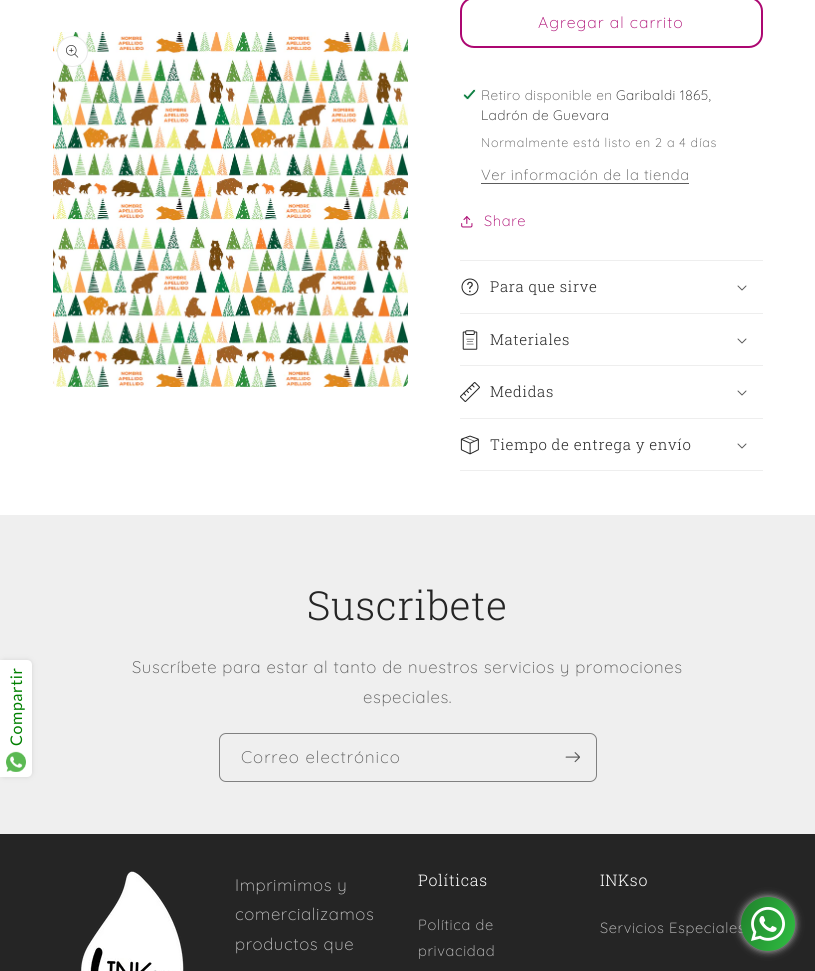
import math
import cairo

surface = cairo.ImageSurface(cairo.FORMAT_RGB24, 815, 971)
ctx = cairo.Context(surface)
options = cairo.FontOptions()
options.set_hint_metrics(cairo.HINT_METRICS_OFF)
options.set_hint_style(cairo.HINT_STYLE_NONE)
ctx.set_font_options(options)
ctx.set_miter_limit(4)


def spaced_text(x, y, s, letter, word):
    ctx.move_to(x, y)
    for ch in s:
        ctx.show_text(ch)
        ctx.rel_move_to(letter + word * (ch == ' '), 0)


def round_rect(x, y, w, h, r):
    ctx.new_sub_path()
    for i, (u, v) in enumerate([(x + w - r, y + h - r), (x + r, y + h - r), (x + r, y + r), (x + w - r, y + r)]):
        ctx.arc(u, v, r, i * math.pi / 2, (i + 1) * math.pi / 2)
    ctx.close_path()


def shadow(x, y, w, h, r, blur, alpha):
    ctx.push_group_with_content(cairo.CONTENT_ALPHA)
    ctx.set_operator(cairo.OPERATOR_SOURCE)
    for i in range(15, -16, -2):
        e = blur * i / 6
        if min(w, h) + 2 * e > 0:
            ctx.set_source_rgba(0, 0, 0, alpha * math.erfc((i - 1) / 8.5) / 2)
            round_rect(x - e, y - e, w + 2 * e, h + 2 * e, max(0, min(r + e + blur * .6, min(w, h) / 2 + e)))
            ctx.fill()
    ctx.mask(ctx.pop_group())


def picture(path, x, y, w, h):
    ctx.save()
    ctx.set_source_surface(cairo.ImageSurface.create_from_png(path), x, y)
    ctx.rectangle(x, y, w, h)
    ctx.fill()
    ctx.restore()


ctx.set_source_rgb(1, 1, 1)
ctx.paint()
ctx.set_source_rgb(0.937, 0.937, 0.937)
ctx.rectangle(0, 515, 815, 319)
ctx.fill()
ctx.set_source_rgb(0.827, 0.827, 0.827)
shadow(0, 660, 32, 117, 5, 2.5, 1)
ctx.set_source_rgb(1, 1, 1)
ctx.new_path()
ctx.move_to(0, 660)
ctx.line_to(27, 660)
ctx.curve_to(30, 660, 32, 662, 32, 665)
ctx.line_to(32, 772)
ctx.curve_to(32, 775, 30, 777, 27, 777)
ctx.line_to(0, 777)
ctx.close_path()
ctx.fill()
ctx.select_font_face("Lato")
ctx.set_font_size(16)
ctx.set_source_rgb(0, 0.502, 0)
ctx.save()
ctx.translate(22, 746)
ctx.rotate(-90 * math.pi / 180)
spaced_text(0, 0, "Compartir", 0.63, 0)
ctx.restore()
picture("img1.png", 6, 751, 20, 21)
picture("img2.png", 53, 32, 355, 355)
ctx.set_source_rgb(1, 1, 1)
ctx.arc(72.5, 51.5, 15.5, 0, 2 * math.pi)
ctx.fill()
ctx.arc(72.5, 51.5, 15, 0, 2 * math.pi)
ctx.set_source_rgba(0.145, 0.145, 0.145, 0.1)
ctx.set_line_width(1)
ctx.stroke()
picture("img3.png", 66, 45, 13, 13)
round_rect(461, -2, 301, 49, 13)
ctx.set_source_rgb(0.675, 0.031, 0.443)
ctx.set_line_width(2)
ctx.stroke()
ctx.select_font_face("Quicksand Light")
ctx.set_font_size(15.75)
spaced_text(538, 28, "Agregar al carrito", 1, 0)
picture("img4.png", 463, 89, 13, 11)
ctx.set_font_size(13.75)
ctx.set_source_rgb(0.345, 0.345, 0.345)
spaced_text(481, 100, "Retiro disponible en", 0.4, 0)
ctx.set_source_rgb(0.145, 0.145, 0.145)
spaced_text(616, 100, "Garibaldi 1865,", 0.4, 0)
spaced_text(481, 120, "Ladrón de Guevara", 0.4, 0)
ctx.set_font_size(12.6)
ctx.set_source_rgb(0.345, 0.345, 0.345)
spaced_text(481, 147, "Normalmente está listo en 2 a 4 días", 0.75, 0)
ctx.set_font_size(14.75)
spaced_text(481, 180, "Ver información de la tienda", 0.63, 0)
ctx.set_source_rgb(0.361, 0.361, 0.361)
ctx.rectangle(481, 183, 208, 1)
ctx.fill()
picture("img5.png", 461, 216, 12, 12)
ctx.set_source_rgb(0.675, 0.031, 0.443)
spaced_text(484, 226, "Share", 0.63, 0)
ctx.set_source_rgb(0.933, 0.933, 0.933)
ctx.rectangle(460, 260, 303, 1)
ctx.fill()
ctx.rectangle(460, 313, 303, 1)
ctx.fill()
picture("img6.png", 461, 278, 18, 18)
ctx.select_font_face("Roboto Slab Light")
ctx.set_font_size(15)
ctx.set_source_rgb(0.145, 0.145, 0.145)
spaced_text(490, 292, "Para que sirve", 0.6, 0)
picture("img7.png", 737, 285, 10, 6)
ctx.set_source_rgb(0.933, 0.933, 0.933)
ctx.rectangle(460, 365, 303, 1)
ctx.fill()
picture("img8.png", 462, 330, 16, 20)
ctx.set_source_rgb(0.145, 0.145, 0.145)
spaced_text(490, 345, "Materiales", 0.6, 0)
picture("img7.png", 737, 338, 10, 6)
ctx.set_source_rgb(0.933, 0.933, 0.933)
ctx.rectangle(460, 418, 303, 1)
ctx.fill()
picture("img9.png", 460, 382, 20, 20)
ctx.set_source_rgb(0.145, 0.145, 0.145)
spaced_text(490, 397, "Medidas", 0.6, 0)
picture("img7.png", 737, 390, 10, 6)
ctx.set_source_rgb(0.933, 0.933, 0.933)
ctx.rectangle(460, 470, 303, 1)
ctx.fill()
picture("img10.png", 460, 435, 19, 20)
ctx.set_source_rgb(0.145, 0.145, 0.145)
spaced_text(490, 450, "Tiempo de entrega y envío", 0.6, 0)
picture("img7.png", 737, 443, 10, 6)
ctx.set_font_size(40)
spaced_text(307, 620, "Suscribete", 0.6, 0)
ctx.select_font_face("Quicksand Light")
ctx.set_font_size(16.8)
ctx.set_source_rgb(0.345, 0.345, 0.345)
spaced_text(132, 673, "Suscríbete para estar al tanto de nuestros servicios y promociones", 0.63, 0)
spaced_text(363, 703, "especiales.", 0.63, 0)
round_rect(219.5, 733.5, 377, 48, 6.5)
ctx.set_source_rgb(0.502, 0.502, 0.502)
ctx.set_line_width(1)
ctx.stroke()
ctx.set_source_rgb(0.345, 0.345, 0.345)
spaced_text(241, 763, "Correo electrónico", 1, 0)
picture("img11.png", 565, 752, 15, 11)
ctx.set_source_rgb(0.145, 0.145, 0.145)
ctx.rectangle(0, 834, 815, 137)
ctx.fill()
picture("img12.png", 81, 871, 103, 100)
ctx.set_source_rgb(0.788, 0.788, 0.788)
spaced_text(235, 891, "Imprimimos y", 0.63, 0)
spaced_text(235, 920, "comercializamos", 0.63, 0)
spaced_text(235, 950, "productos que", 0.63, 0)
ctx.select_font_face("Roboto Slab Light")
ctx.set_font_size(16)
ctx.set_source_rgb(1, 1, 1)
spaced_text(418, 886, "Políticas", 0.6, 0)
ctx.select_font_face("Quicksand Light")
ctx.set_font_size(14.75)
ctx.set_source_rgb(0.788, 0.788, 0.788)
spaced_text(418, 930, "Política de", 0.63, 0)
spaced_text(418, 956, "privacidad", 0.63, 0)
ctx.select_font_face("Roboto Slab Light")
ctx.set_font_size(16)
ctx.set_source_rgb(1, 1, 1)
spaced_text(600, 886, "INKso", 0.6, 0)
ctx.select_font_face("Quicksand Light")
ctx.set_font_size(14.75)
ctx.set_source_rgb(0.788, 0.788, 0.788)
spaced_text(600, 933, "Servicios Especiales", 0.63, 0)
ctx.set_source_rgb(0.761, 0.761, 0.761)
shadow(741, 897, 54, 54, 27, 4, 1)
gradient = cairo.LinearGradient(735, 911, 801, 937)
gradient.add_color_stop_rgba(0, 0.125, 0.502, 0.173, 1)
gradient.add_color_stop_rgba(0, 0.125, 0.502, 0.173, 1)
gradient.add_color_stop_rgba(1, 0.188, 0.749, 0.259, 1)
ctx.set_source(gradient)
ctx.arc(768, 924, 27, 0, 2 * math.pi)
ctx.fill()
picture("img13.png", 751, 907, 34, 34)
surface.write_to_png("page.png")
